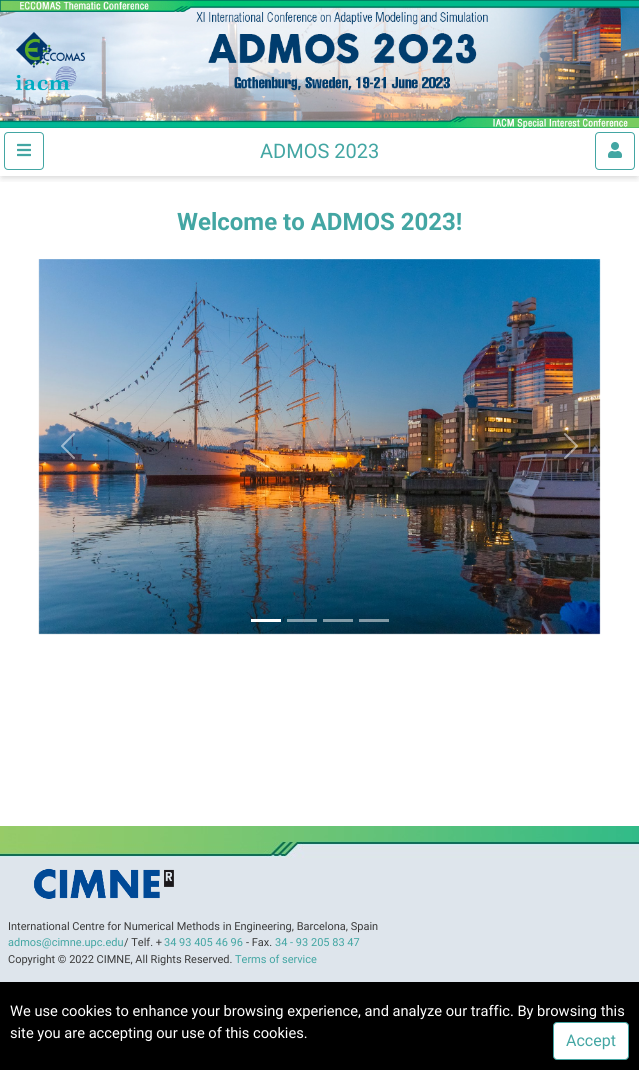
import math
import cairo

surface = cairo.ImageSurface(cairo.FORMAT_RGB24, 639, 1070)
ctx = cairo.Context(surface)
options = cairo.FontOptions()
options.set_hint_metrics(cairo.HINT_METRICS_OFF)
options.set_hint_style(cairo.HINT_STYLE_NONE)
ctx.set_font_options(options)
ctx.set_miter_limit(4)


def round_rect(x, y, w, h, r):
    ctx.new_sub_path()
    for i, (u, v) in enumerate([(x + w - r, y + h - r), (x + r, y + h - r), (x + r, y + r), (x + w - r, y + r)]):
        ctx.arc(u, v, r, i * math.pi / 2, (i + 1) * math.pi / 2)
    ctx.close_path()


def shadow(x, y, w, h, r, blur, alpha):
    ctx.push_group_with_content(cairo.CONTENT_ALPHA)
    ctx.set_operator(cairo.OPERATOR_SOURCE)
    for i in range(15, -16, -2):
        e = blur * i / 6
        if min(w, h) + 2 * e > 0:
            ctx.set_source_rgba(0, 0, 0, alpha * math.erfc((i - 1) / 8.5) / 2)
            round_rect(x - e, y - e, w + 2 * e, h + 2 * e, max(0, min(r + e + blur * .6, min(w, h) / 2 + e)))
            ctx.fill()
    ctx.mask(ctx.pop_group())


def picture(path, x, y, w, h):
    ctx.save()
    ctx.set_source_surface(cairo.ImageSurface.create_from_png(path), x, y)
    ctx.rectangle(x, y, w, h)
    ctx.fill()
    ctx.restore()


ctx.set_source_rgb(1, 1, 1)
ctx.paint()
picture("img1.png", 0, 0, 639, 128)
ctx.save()
ctx.rectangle(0, 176, 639, 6)
ctx.clip()
ctx.set_source_rgb(0, 0, 0)
shadow(2, 133, 635, 44, 0, 4, 0.2)
ctx.restore()
round_rect(4.5, 132.5, 39, 37, 3.5)
ctx.set_source_rgb(0.263, 0.651, 0.639)
ctx.set_line_width(1)
ctx.stroke()
picture("img2.png", 17, 143, 14, 14)
ctx.select_font_face("Roboto")
ctx.set_font_size(20)
ctx.move_to(260, 158)
ctx.show_text("ADMOS 2023")
round_rect(595.5, 132.5, 39, 37, 3.5)
ctx.stroke()
picture("img3.png", 608, 142, 14, 16)
ctx.select_font_face("Roboto", cairo.FONT_SLANT_NORMAL, cairo.FONT_WEIGHT_BOLD)
ctx.set_font_size(24)
ctx.move_to(177, 230)
ctx.show_text("Welcome to ADMOS 2023!")
picture("img4.png", 38, 259, 563, 376)
picture("img5.png", 61, 433, 14, 26)
picture("img6.png", 564, 433, 14, 26)
ctx.set_source_rgb(1, 1, 1)
ctx.rectangle(251, 619, 30, 3)
ctx.fill()
ctx.set_source_rgba(1, 1, 1, 0.5)
ctx.rectangle(287, 619, 30, 3)
ctx.fill()
ctx.rectangle(323, 619, 30, 3)
ctx.fill()
ctx.rectangle(359, 619, 30, 3)
ctx.fill()
picture("img7.png", 0, 826, 639, 32)
ctx.set_source_rgb(0.871, 0.898, 0.922)
ctx.rectangle(0, 858, 639, 124)
ctx.fill()
picture("img8.png", 34, 868, 140, 31)
ctx.select_font_face("Roboto")
ctx.set_font_size(11)
ctx.set_source_rgb(0.231, 0.231, 0.231)
ctx.move_to(8, 930)
ctx.show_text("International Centre for Numerical Methods in Engineering, Barcelona, Spain")
ctx.set_source_rgb(0.263, 0.651, 0.639)
ctx.move_to(8, 946)
ctx.show_text("admos@cimne.upc.edu")
ctx.set_source_rgb(0.231, 0.231, 0.231)
ctx.move_to(124, 946)
ctx.show_text("/ Telf. +")
ctx.set_source_rgb(0.263, 0.651, 0.639)
ctx.move_to(164, 946)
ctx.show_text("34 93 405 46 96")
ctx.set_source_rgb(0.231, 0.231, 0.231)
ctx.move_to(246, 946)
ctx.show_text("- Fax.")
ctx.set_source_rgb(0.263, 0.651, 0.639)
ctx.move_to(275, 946)
ctx.show_text("34 - 93 205 83 47")
ctx.set_source_rgb(0.231, 0.231, 0.231)
ctx.move_to(8, 963)
ctx.show_text("Copyright © 2022 CIMNE, All Rights Reserved.")
ctx.set_source_rgb(0.263, 0.651, 0.639)
ctx.move_to(235, 963)
ctx.show_text("Terms of service")
ctx.set_source_rgb(0, 0, 0)
ctx.rectangle(0, 982, 639, 88)
ctx.fill()
ctx.set_font_size(14.65)
ctx.set_source_rgb(1, 1, 1)
ctx.move_to(10, 1016)
ctx.show_text("We use cookies to enhance your browsing experience, and analyze our traffic. By browsing this")
ctx.move_to(10, 1038)
ctx.show_text("site you are accepting our use of this cookies.")
round_rect(553.5, 1022.5, 75, 37, 3.5)
ctx.fill_preserve()
ctx.set_source_rgb(0.263, 0.651, 0.639)
ctx.stroke()
ctx.set_font_size(16)
ctx.move_to(566, 1046)
ctx.show_text("Accept")
surface.write_to_png("page.png")
